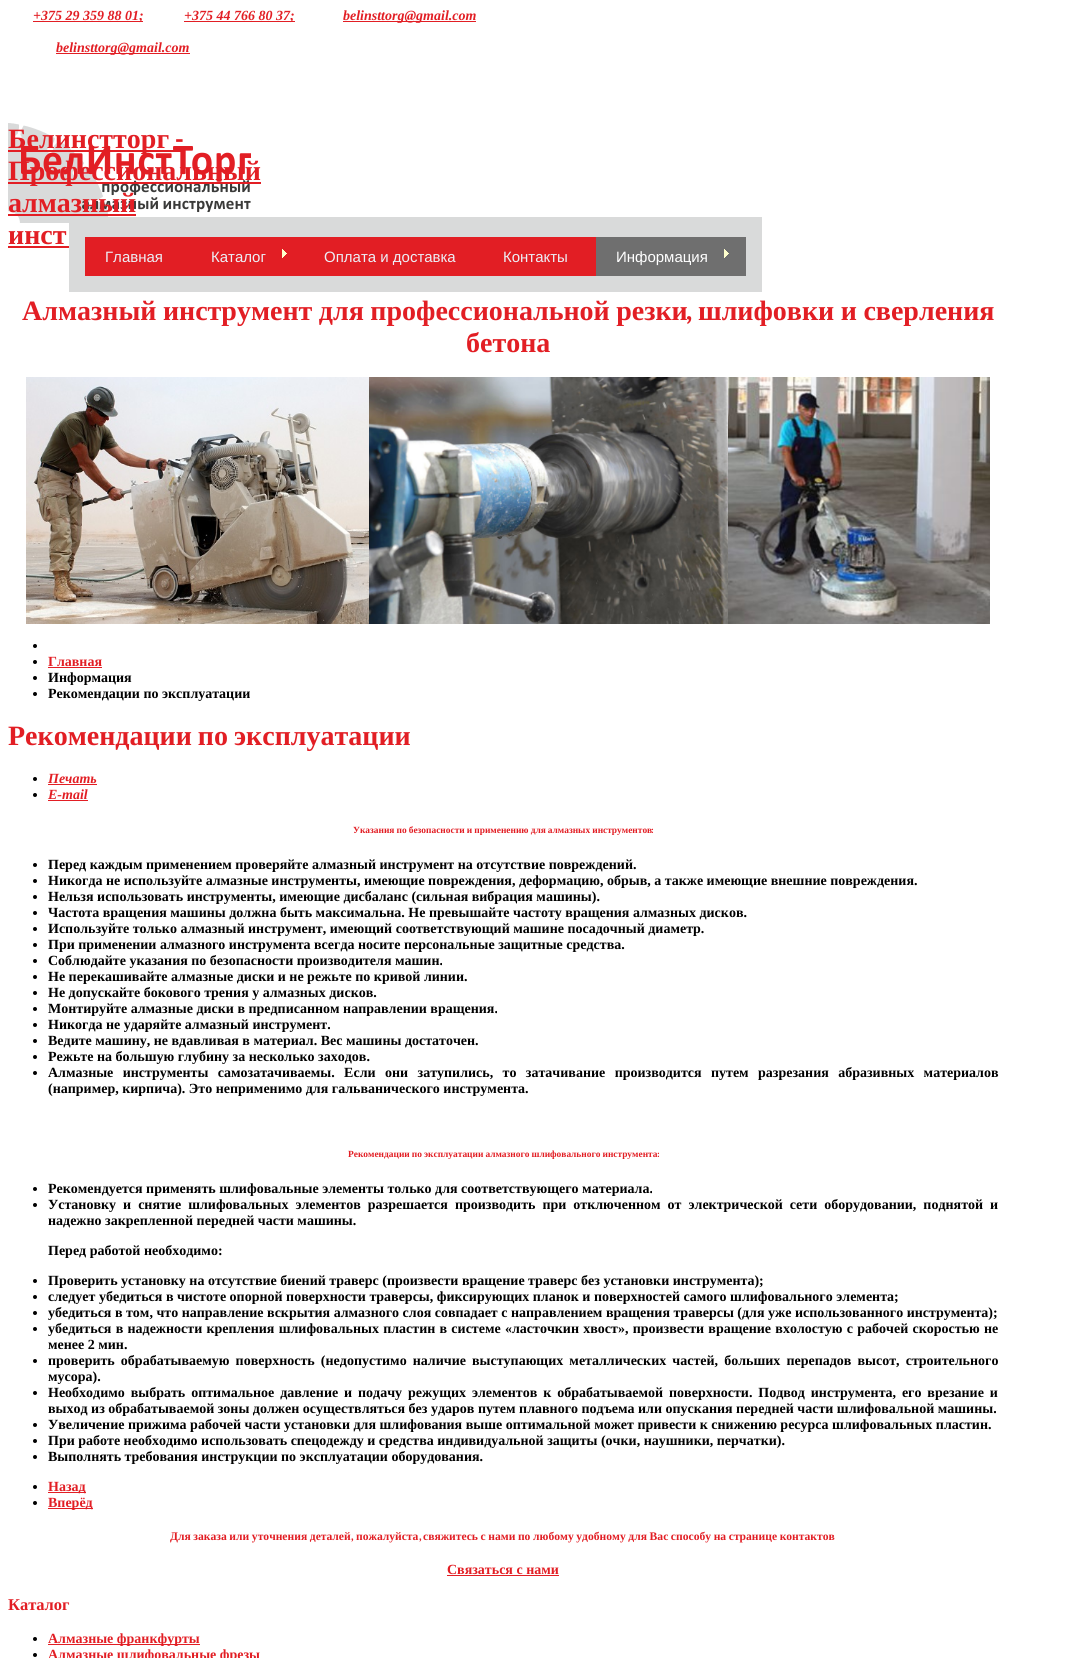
import math
import cairo

surface = cairo.ImageSurface(cairo.FORMAT_RGB24, 1092, 1658)
ctx = cairo.Context(surface)
options = cairo.FontOptions()
options.set_hint_metrics(cairo.HINT_METRICS_OFF)
options.set_hint_style(cairo.HINT_STYLE_NONE)
ctx.set_font_options(options)
ctx.set_miter_limit(4)


def spaced_text(x, y, s, letter, word):
    ctx.move_to(x, y)
    for ch in s:
        ctx.show_text(ch)
        ctx.rel_move_to(letter + word * (ch == ' '), 0)


def picture(path, x, y, w, h):
    ctx.save()
    ctx.set_source_surface(cairo.ImageSurface.create_from_png(path), x, y)
    ctx.rectangle(x, y, w, h)
    ctx.fill()
    ctx.restore()


ctx.set_source_rgb(1, 1, 1)
ctx.paint()
ctx.set_source_rgb(0.886, 0.118, 0.141)
ctx.rectangle(33, 21, 110, 1)
ctx.fill()
ctx.select_font_face("Liberation Serif", cairo.FONT_SLANT_ITALIC, cairo.FONT_WEIGHT_BOLD)
ctx.set_font_size(14)
ctx.move_to(33, 20)
ctx.show_text("+375 29 359 88 01;")
ctx.rectangle(184, 21, 111, 1)
ctx.fill()
ctx.move_to(184, 20)
ctx.show_text("+375 44 766 80 37;")
ctx.rectangle(343, 21, 133, 1)
ctx.fill()
ctx.move_to(343, 20)
ctx.show_text("belinsttorg@gmail.com")
ctx.rectangle(56, 53, 134, 1)
ctx.fill()
ctx.move_to(56, 52)
ctx.show_text("belinsttorg@gmail.com")
picture("img1.png", 8, 123, 243, 100)
ctx.rectangle(8, 150, 176, 2)
ctx.fill()
ctx.select_font_face("Liberation Serif", cairo.FONT_SLANT_NORMAL, cairo.FONT_WEIGHT_BOLD)
ctx.set_font_size(28)
ctx.move_to(8, 148)
ctx.show_text("Белинстторг")
ctx.select_font_face("Caladea", cairo.FONT_SLANT_NORMAL, cairo.FONT_WEIGHT_BOLD)
ctx.move_to(175, 148)
ctx.show_text("-")
ctx.rectangle(8, 182, 253, 2)
ctx.fill()
ctx.select_font_face("Liberation Serif", cairo.FONT_SLANT_NORMAL, cairo.FONT_WEIGHT_BOLD)
ctx.move_to(8, 180)
ctx.show_text("Профессиональный")
ctx.move_to(8, 212)
ctx.show_text("алмазный")
ctx.rectangle(8, 214, 128, 2)
ctx.fill()
ctx.move_to(8, 244)
ctx.show_text("инст")
ctx.rectangle(8, 246, 61, 2)
ctx.fill()
ctx.set_source_rgb(0.851, 0.855, 0.855)
ctx.rectangle(69, 217, 693, 75)
ctx.fill()
ctx.set_source_rgb(0.886, 0.118, 0.141)
ctx.rectangle(85, 237, 511, 39)
ctx.fill()
ctx.select_font_face("Liberation Sans")
ctx.set_font_size(15)
ctx.set_source_rgb(0.922, 0.937, 0.961)
ctx.move_to(105, 262)
ctx.show_text("Главная")
ctx.move_to(211, 262)
ctx.show_text("Каталог")
picture("img2.png", 282, 249, 5, 9)
ctx.move_to(324, 262)
ctx.show_text("Оплата и доставка")
ctx.move_to(503, 262)
ctx.show_text("Контакты")
ctx.set_source_rgb(0.435, 0.435, 0.435)
ctx.rectangle(596, 237, 150, 39)
ctx.fill()
ctx.set_source_rgb(1, 1, 1)
ctx.move_to(616, 262)
ctx.show_text("Информация")
picture("img3.png", 724, 249, 5, 9)
ctx.select_font_face("Liberation Serif", cairo.FONT_SLANT_NORMAL, cairo.FONT_WEIGHT_BOLD)
ctx.set_font_size(28)
ctx.set_source_rgb(0.886, 0.118, 0.141)
spaced_text(22, 320, "Алмазный инструмент для профессиональной резки", 0, -0.5)
ctx.select_font_face("Caladea", cairo.FONT_SLANT_NORMAL, cairo.FONT_WEIGHT_BOLD)
ctx.move_to(686, 320)
ctx.show_text(",")
ctx.select_font_face("Liberation Serif", cairo.FONT_SLANT_NORMAL, cairo.FONT_WEIGHT_BOLD)
spaced_text(698, 320, "шлифовки и сверления", 0, -0.5)
ctx.move_to(466, 352)
ctx.show_text("бетона")
picture("img4.png", 26, 377, 964, 247)
ctx.set_source_rgb(0, 0, 0)
ctx.arc(35, 646, 2, 0, 2 * math.pi)
ctx.fill()
ctx.arc(35, 662, 2, 0, 2 * math.pi)
ctx.fill()
ctx.set_font_size(14)
ctx.set_source_rgb(0.886, 0.118, 0.141)
ctx.move_to(48, 666)
ctx.show_text("Главная")
ctx.rectangle(48, 667, 54, 1)
ctx.fill()
ctx.set_source_rgb(0, 0, 0)
ctx.arc(35, 678, 2, 0, 2 * math.pi)
ctx.fill()
ctx.move_to(48, 682)
ctx.show_text("Информация")
ctx.new_path()
ctx.arc(35, 694, 2, 0, 2 * math.pi)
ctx.fill()
ctx.move_to(48, 698)
ctx.show_text("Рекомендации по эксплуатации")
ctx.set_font_size(28)
ctx.set_source_rgb(0.886, 0.118, 0.141)
spaced_text(8, 745, "Рекомендации по эксплуатации", 0, -1)
ctx.set_source_rgb(0, 0, 0)
ctx.new_path()
ctx.arc(35, 779, 2, 0, 2 * math.pi)
ctx.fill()
ctx.select_font_face("Liberation Serif", cairo.FONT_SLANT_ITALIC, cairo.FONT_WEIGHT_BOLD)
ctx.set_font_size(14)
ctx.set_source_rgb(0.886, 0.118, 0.141)
ctx.move_to(48, 783)
ctx.show_text("Печать")
ctx.rectangle(48, 784, 49, 1)
ctx.fill()
ctx.set_source_rgb(0, 0, 0)
ctx.arc(35, 795, 2, 0, 2 * math.pi)
ctx.fill()
ctx.set_source_rgb(0.886, 0.118, 0.141)
ctx.move_to(48, 799)
ctx.show_text("E-mail")
ctx.rectangle(48, 800, 40, 1)
ctx.fill()
ctx.select_font_face("Liberation Serif", cairo.FONT_SLANT_NORMAL, cairo.FONT_WEIGHT_BOLD)
ctx.set_font_size(9.4)
spaced_text(353, 833, "Указания по безопасности и применению для алмазных инструментов", 0, -0.25)
ctx.select_font_face("Caladea", cairo.FONT_SLANT_NORMAL, cairo.FONT_WEIGHT_BOLD)
ctx.move_to(651, 833)
ctx.show_text(":")
ctx.set_source_rgb(0, 0, 0)
ctx.new_path()
ctx.arc(35, 865, 2, 0, 2 * math.pi)
ctx.fill()
ctx.select_font_face("Liberation Serif", cairo.FONT_SLANT_NORMAL, cairo.FONT_WEIGHT_BOLD)
ctx.set_font_size(14)
ctx.move_to(48, 869)
ctx.show_text("Перед каждым применением проверяйте алмазный инструмент на отсутствие повреждений.")
ctx.new_path()
ctx.arc(35, 881, 2, 0, 2 * math.pi)
ctx.fill()
ctx.move_to(48, 885)
ctx.show_text("Никогда не используйте алмазные инструменты, имеющие повреждения, деформацию, обрыв, а также имеющие внешние повреждения.")
ctx.new_path()
ctx.arc(35, 897, 2, 0, 2 * math.pi)
ctx.fill()
ctx.move_to(48, 901)
ctx.show_text("Нельзя использовать инструменты, имеющие дисбаланс (сильная вибрация машины).")
ctx.new_path()
ctx.arc(35, 913, 2, 0, 2 * math.pi)
ctx.fill()
ctx.move_to(48, 917)
ctx.show_text("Частота вращения машины должна быть максимальна. Не превышайте частоту вращения алмазных дисков.")
ctx.new_path()
ctx.arc(35, 929, 2, 0, 2 * math.pi)
ctx.fill()
ctx.move_to(48, 933)
ctx.show_text("Используйте только алмазный инструмент, имеющий соответствующий машине посадочный диаметр.")
ctx.new_path()
ctx.arc(35, 945, 2, 0, 2 * math.pi)
ctx.fill()
ctx.move_to(48, 949)
ctx.show_text("При применении алмазного инструмента всегда носите персональные защитные средства.")
ctx.new_path()
ctx.arc(35, 961, 2, 0, 2 * math.pi)
ctx.fill()
ctx.move_to(48, 965)
ctx.show_text("Соблюдайте указания по безопасности производителя машин.")
ctx.new_path()
ctx.arc(35, 977, 2, 0, 2 * math.pi)
ctx.fill()
ctx.move_to(48, 981)
ctx.show_text("Не перекашивайте алмазные диски и не режьте по кривой линии.")
ctx.new_path()
ctx.arc(35, 993, 2, 0, 2 * math.pi)
ctx.fill()
ctx.move_to(48, 997)
ctx.show_text("Не допускайте бокового трения у алмазных дисков.")
ctx.new_path()
ctx.arc(35, 1009, 2, 0, 2 * math.pi)
ctx.fill()
ctx.move_to(48, 1013)
ctx.show_text("Монтируйте алмазные диски в предписанном направлении вращения.")
ctx.new_path()
ctx.arc(35, 1025, 2, 0, 2 * math.pi)
ctx.fill()
ctx.move_to(48, 1029)
ctx.show_text("Никогда не ударяйте алмазный инструмент.")
ctx.new_path()
ctx.arc(35, 1041, 2, 0, 2 * math.pi)
ctx.fill()
ctx.move_to(48, 1045)
ctx.show_text("Ведите машину, не вдавливая в материал. Вес машины достаточен.")
ctx.new_path()
ctx.arc(35, 1057, 2, 0, 2 * math.pi)
ctx.fill()
ctx.move_to(48, 1061)
ctx.show_text("Режьте на большую глубину за несколько заходов.")
ctx.new_path()
ctx.arc(35, 1073, 2, 0, 2 * math.pi)
ctx.fill()
spaced_text(48, 1077, "Алмазные инструменты самозатачиваемы. Если они затупились, то затачивание производится путем разрезания абразивных материалов", 0, 5.9)
ctx.move_to(48, 1093)
ctx.show_text("(например, кирпича). Это неприменимо для гальванического инструмента.")
ctx.set_font_size(9.4)
ctx.set_source_rgb(0.886, 0.118, 0.141)
spaced_text(348, 1157, "Рекомендации по эксплуатации алмазного шлифовального инструмента", 0, -0.25)
ctx.select_font_face("Caladea", cairo.FONT_SLANT_NORMAL, cairo.FONT_WEIGHT_BOLD)
ctx.move_to(657, 1157)
ctx.show_text(":")
ctx.set_source_rgb(0, 0, 0)
ctx.new_path()
ctx.arc(35, 1189, 2, 0, 2 * math.pi)
ctx.fill()
ctx.select_font_face("Liberation Serif", cairo.FONT_SLANT_NORMAL, cairo.FONT_WEIGHT_BOLD)
ctx.set_font_size(14)
ctx.move_to(48, 1193)
ctx.show_text("Рекомендуется применять шлифовальные элементы только для соответствующего материала.")
ctx.new_path()
ctx.arc(35, 1205, 2, 0, 2 * math.pi)
ctx.fill()
spaced_text(48, 1209, "Установку и снятие шлифовальных элементов разрешается производить при отключенном от электрической сети оборудовании, поднятой и", 0, 3.5)
ctx.move_to(48, 1225)
ctx.show_text("надежно закрепленной передней части машины.")
ctx.move_to(48, 1255)
ctx.show_text("Перед работой необходимо:")
ctx.new_path()
ctx.arc(35, 1281, 2, 0, 2 * math.pi)
ctx.fill()
ctx.move_to(48, 1285)
ctx.show_text("Проверить установку на отсутствие биений траверс (произвести вращение траверс без установки инструмента);")
ctx.new_path()
ctx.arc(35, 1297, 2, 0, 2 * math.pi)
ctx.fill()
ctx.move_to(48, 1301)
ctx.show_text("следует убедиться в чистоте опорной поверхности траверсы, фиксирующих планок и поверхностей самого шлифовального элемента;")
ctx.new_path()
ctx.arc(35, 1313, 2, 0, 2 * math.pi)
ctx.fill()
ctx.move_to(48, 1317)
ctx.show_text("убедиться в том, что направление вскрытия алмазного слоя совпадает с направлением вращения траверсы (для уже использованного инструмента);")
ctx.new_path()
ctx.arc(35, 1329, 2, 0, 2 * math.pi)
ctx.fill()
spaced_text(48, 1333, "убедиться в надежности крепления шлифовальных пластин в системе «ласточкин хвост», произвести вращение вхолостую с рабочей скоростью не", 0, 0.75)
ctx.move_to(48, 1349)
ctx.show_text("менее 2 мин.")
ctx.new_path()
ctx.arc(35, 1361, 2, 0, 2 * math.pi)
ctx.fill()
spaced_text(48, 1365, "проверить обрабатываемую поверхность (недопустимо наличие выступающих металлических частей, больших перепадов высот, строительного", 0, 2.6)
ctx.move_to(48, 1381)
ctx.show_text("мусора).")
ctx.new_path()
ctx.arc(35, 1393, 2, 0, 2 * math.pi)
ctx.fill()
spaced_text(48, 1397, "Необходимо выбрать оптимальное давление и подачу режущих элементов к обрабатываемой поверхности. Подвод инструмента, его врезание и", 0, 2.4)
ctx.move_to(48, 1413)
ctx.show_text("выход из обрабатываемой зоны должен осуществляться без ударов путем плавного подъема или опускания передней части шлифовальной машины.")
ctx.new_path()
ctx.arc(35, 1425, 2, 0, 2 * math.pi)
ctx.fill()
ctx.move_to(48, 1429)
ctx.show_text("Увеличение прижима рабочей части установки для шлифования выше оптимальной может привести к снижению ресурса шлифовальных пластин.")
ctx.new_path()
ctx.arc(35, 1441, 2, 0, 2 * math.pi)
ctx.fill()
ctx.move_to(48, 1445)
ctx.show_text("При работе необходимо использовать спецодежду и средства индивидуальной защиты (очки, наушники, перчатки).")
ctx.new_path()
ctx.arc(35, 1457, 2, 0, 2 * math.pi)
ctx.fill()
ctx.move_to(48, 1461)
ctx.show_text("Выполнять требования инструкции по эксплуатации оборудования.")
ctx.new_path()
ctx.arc(35, 1487, 2, 0, 2 * math.pi)
ctx.fill()
ctx.set_source_rgb(0.886, 0.118, 0.141)
ctx.rectangle(48, 1492, 38, 1)
ctx.fill()
ctx.move_to(48, 1491)
ctx.show_text("Назад")
ctx.set_source_rgb(0, 0, 0)
ctx.new_path()
ctx.arc(35, 1503, 2, 0, 2 * math.pi)
ctx.fill()
ctx.set_source_rgb(0.886, 0.118, 0.141)
ctx.rectangle(48, 1508, 45, 1)
ctx.fill()
ctx.move_to(48, 1507)
ctx.show_text("Вперёд")
ctx.set_font_size(11.6)
spaced_text(170, 1540, "Для заказа или уточнения деталей", 0, -0.3)
ctx.select_font_face("Caladea", cairo.FONT_SLANT_NORMAL, cairo.FONT_WEIGHT_BOLD)
ctx.move_to(351, 1540)
ctx.show_text(",")
ctx.select_font_face("Liberation Serif", cairo.FONT_SLANT_NORMAL, cairo.FONT_WEIGHT_BOLD)
ctx.move_to(356, 1540)
ctx.show_text("пожалуйста")
ctx.select_font_face("Caladea", cairo.FONT_SLANT_NORMAL, cairo.FONT_WEIGHT_BOLD)
ctx.move_to(419, 1540)
ctx.show_text(",")
ctx.select_font_face("Liberation Serif", cairo.FONT_SLANT_NORMAL, cairo.FONT_WEIGHT_BOLD)
spaced_text(423, 1540, "свяжитесь с нами по любому удобному для Вас способу на странице контактов", 0, -0.3)
ctx.set_font_size(14)
ctx.move_to(447, 1574)
ctx.show_text("Связаться с нами")
ctx.rectangle(447, 1575, 112, 1)
ctx.fill()
ctx.set_font_size(16.5)
ctx.move_to(8, 1610)
ctx.show_text("Каталог")
ctx.set_source_rgb(0, 0, 0)
ctx.new_path()
ctx.arc(35, 1639, 2, 0, 2 * math.pi)
ctx.fill()
ctx.set_source_rgb(0.886, 0.118, 0.141)
ctx.rectangle(48, 1644, 152, 1)
ctx.fill()
ctx.set_font_size(14)
ctx.move_to(48, 1643)
ctx.show_text("Алмазные франкфурты")
ctx.set_source_rgb(0, 0, 0)
ctx.new_path()
ctx.arc(35, 1655, 2, 0, 2 * math.pi)
ctx.fill()
ctx.set_source_rgb(0.886, 0.118, 0.141)
ctx.move_to(48, 1659)
ctx.show_text("Алмазные шлифовальные фрезы")
surface.write_to_png("page.png")
